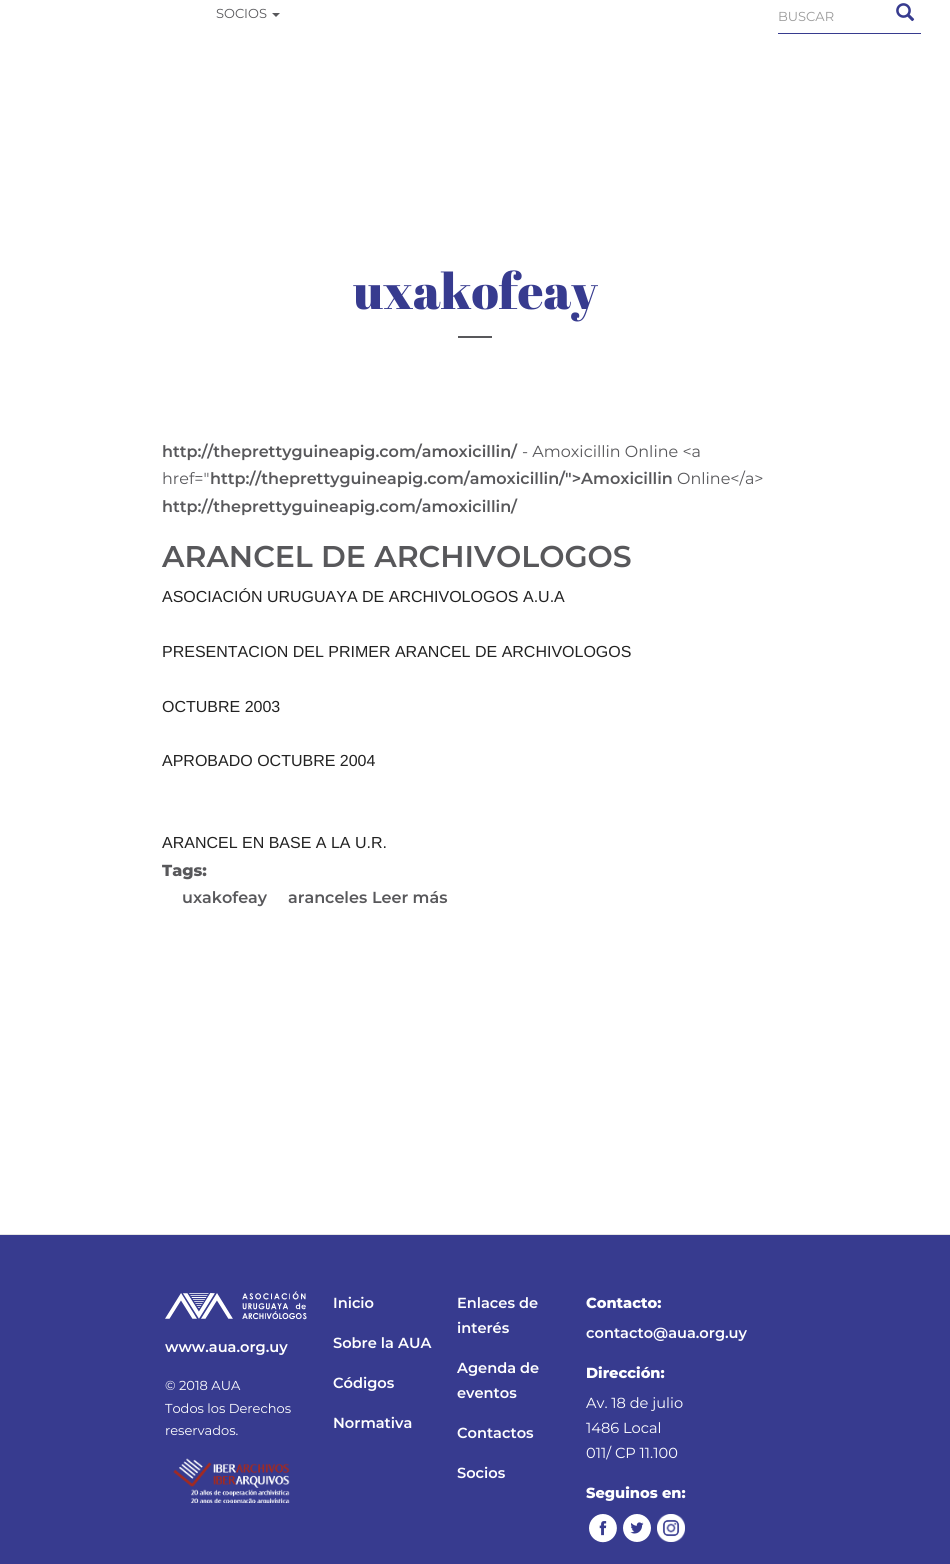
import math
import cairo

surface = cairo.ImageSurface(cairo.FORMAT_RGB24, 950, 1564)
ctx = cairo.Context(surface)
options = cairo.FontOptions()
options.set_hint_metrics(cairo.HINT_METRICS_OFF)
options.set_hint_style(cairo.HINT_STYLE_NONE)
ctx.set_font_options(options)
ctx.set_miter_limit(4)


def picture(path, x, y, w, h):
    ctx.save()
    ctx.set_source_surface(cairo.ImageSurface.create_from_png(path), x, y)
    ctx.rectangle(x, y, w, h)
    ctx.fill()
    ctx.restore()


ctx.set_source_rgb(1, 1, 1)
ctx.paint()
ctx.select_font_face("Montserrat")
ctx.set_font_size(13)
ctx.set_source_rgb(0.345, 0.345, 0.357)
ctx.move_to(216, 18)
ctx.show_text("SOCIOS")
ctx.new_path()
ctx.move_to(272, 13)
ctx.line_to(280, 13)
ctx.line_to(276, 17)
ctx.close_path()
ctx.fill()
ctx.set_source_rgb(0.216, 0.231, 0.561)
ctx.rectangle(778, 33, 143, 1)
ctx.fill()
ctx.set_source_rgb(0.6, 0.6, 0.6)
ctx.move_to(778, 21)
ctx.show_text("BUSCAR")
picture("img1.png", 896, 3, 19, 19)
ctx.select_font_face("Abril Fatface")
ctx.set_font_size(50)
ctx.set_source_rgb(0.216, 0.231, 0.561)
ctx.move_to(353, 309)
ctx.show_text("uxakofeay")
ctx.set_source_rgb(0.345, 0.345, 0.357)
ctx.rectangle(458, 336, 34, 2)
ctx.fill()
ctx.select_font_face("Montserrat SemiBold")
ctx.set_font_size(16)
ctx.move_to(162, 457)
ctx.show_text("http://theprettyguineapig.com/amoxicillin/")
ctx.select_font_face("Montserrat")
ctx.move_to(522, 457)
ctx.show_text("- Amoxicillin Online <a")
ctx.move_to(162, 484)
ctx.show_text("href=\"")
ctx.select_font_face("Montserrat SemiBold")
ctx.move_to(210, 484)
ctx.show_text("http://theprettyguineapig.com/amoxicillin/\">Amoxicillin")
ctx.select_font_face("Montserrat")
ctx.move_to(677, 484)
ctx.show_text("Online</a>")
ctx.select_font_face("Montserrat SemiBold")
ctx.move_to(162, 512)
ctx.show_text("http://theprettyguineapig.com/amoxicillin/")
ctx.set_font_size(30)
ctx.move_to(162, 567)
ctx.show_text("ARANCEL DE ARCHIVOLOGOS")
ctx.select_font_face("Liberation Sans")
ctx.set_font_size(16)
ctx.set_source_rgb(0.133, 0.133, 0.133)
ctx.move_to(162, 602)
ctx.show_text("ASOCIACIÓN URUGUAYA DE ARCHIVOLOGOS A.U.A")
ctx.move_to(162, 657)
ctx.show_text("PRESENTACION DEL PRIMER ARANCEL DE ARCHIVOLOGOS")
ctx.move_to(162, 712)
ctx.show_text("OCTUBRE 2003")
ctx.move_to(162, 766)
ctx.show_text("APROBADO OCTUBRE 2004")
ctx.move_to(162, 848)
ctx.show_text("ARANCEL EN BASE A LA U.R.")
ctx.select_font_face("Montserrat ExtraBold")
ctx.set_source_rgb(0.345, 0.345, 0.357)
ctx.move_to(162, 876)
ctx.show_text("Tags:")
ctx.select_font_face("Montserrat SemiBold")
ctx.move_to(182, 903)
ctx.show_text("uxakofeay")
ctx.move_to(288, 903)
ctx.show_text("aranceles")
ctx.move_to(372, 903)
ctx.show_text("Leer más")
ctx.set_source_rgb(0.216, 0.231, 0.561)
ctx.rectangle(0, 1235, 950, 329)
ctx.fill()
ctx.set_source_rgb(0.898, 0.898, 0.898)
ctx.rectangle(0, 1234, 950, 1)
ctx.fill()
picture("img2.png", 165, 1291, 142, 29)
ctx.set_font_size(14.6)
ctx.set_source_rgb(1, 1, 1)
ctx.move_to(165, 1352)
ctx.show_text("www.aua.org.uy")
ctx.select_font_face("Montserrat")
ctx.set_font_size(13)
ctx.move_to(165, 1390)
ctx.show_text("© 2018 AUA")
ctx.move_to(165, 1413)
ctx.show_text("Todos los Derechos")
ctx.move_to(165, 1435)
ctx.show_text("reservados.")
picture("img3.png", 173, 1458, 117, 45)
ctx.select_font_face("Montserrat SemiBold")
ctx.set_font_size(14.6)
ctx.move_to(333, 1308)
ctx.show_text("Inicio")
ctx.move_to(333, 1348)
ctx.show_text("Sobre la AUA")
ctx.move_to(333, 1388)
ctx.show_text("Códigos")
ctx.move_to(333, 1428)
ctx.show_text("Normativa")
ctx.move_to(457, 1308)
ctx.show_text("Enlaces de")
ctx.move_to(457, 1333)
ctx.show_text("interés")
ctx.move_to(457, 1373)
ctx.show_text("Agenda de")
ctx.move_to(457, 1398)
ctx.show_text("eventos")
ctx.move_to(457, 1438)
ctx.show_text("Contactos")
ctx.move_to(457, 1478)
ctx.show_text("Socios")
ctx.select_font_face("Montserrat ExtraBold")
ctx.move_to(586, 1308)
ctx.show_text("Contacto:")
ctx.select_font_face("Montserrat SemiBold")
ctx.move_to(586, 1338)
ctx.show_text("contacto@aua.org.uy")
ctx.select_font_face("Montserrat ExtraBold")
ctx.move_to(586, 1378)
ctx.show_text("Dirección:")
ctx.select_font_face("Montserrat")
ctx.move_to(586, 1408)
ctx.show_text("Av. 18 de julio")
ctx.move_to(586, 1433)
ctx.show_text("1486 Local")
ctx.move_to(586, 1458)
ctx.show_text("011/ CP 11.100")
ctx.select_font_face("Montserrat ExtraBold")
ctx.move_to(586, 1498)
ctx.show_text("Seguinos en:")
picture("img4.png", 589, 1514, 28, 29)
picture("img5.png", 623, 1514, 28, 28)
picture("img6.png", 657, 1514, 28, 28)
surface.write_to_png("page.png")
